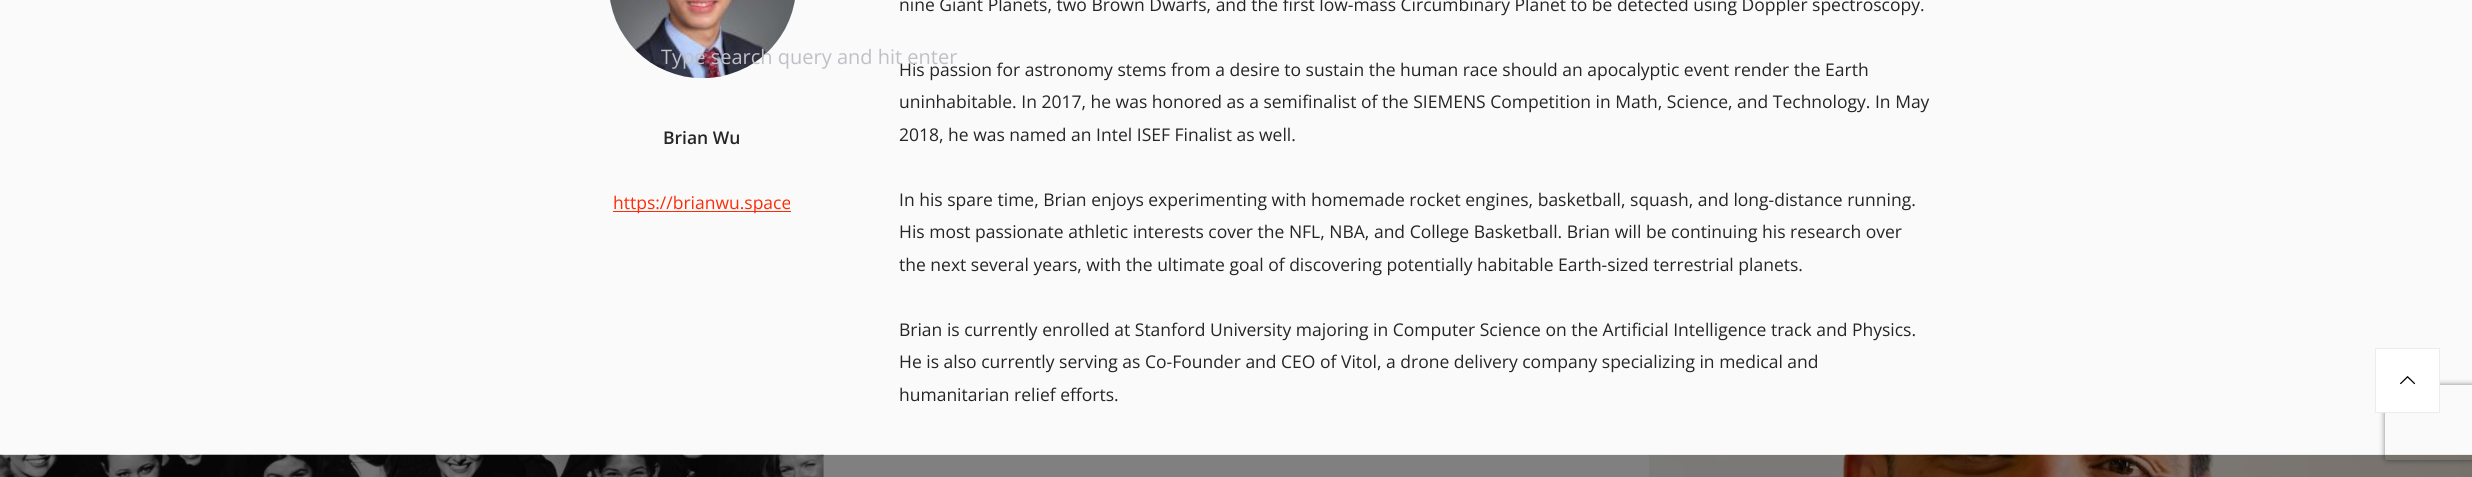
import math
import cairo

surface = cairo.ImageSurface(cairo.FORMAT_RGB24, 2472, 477)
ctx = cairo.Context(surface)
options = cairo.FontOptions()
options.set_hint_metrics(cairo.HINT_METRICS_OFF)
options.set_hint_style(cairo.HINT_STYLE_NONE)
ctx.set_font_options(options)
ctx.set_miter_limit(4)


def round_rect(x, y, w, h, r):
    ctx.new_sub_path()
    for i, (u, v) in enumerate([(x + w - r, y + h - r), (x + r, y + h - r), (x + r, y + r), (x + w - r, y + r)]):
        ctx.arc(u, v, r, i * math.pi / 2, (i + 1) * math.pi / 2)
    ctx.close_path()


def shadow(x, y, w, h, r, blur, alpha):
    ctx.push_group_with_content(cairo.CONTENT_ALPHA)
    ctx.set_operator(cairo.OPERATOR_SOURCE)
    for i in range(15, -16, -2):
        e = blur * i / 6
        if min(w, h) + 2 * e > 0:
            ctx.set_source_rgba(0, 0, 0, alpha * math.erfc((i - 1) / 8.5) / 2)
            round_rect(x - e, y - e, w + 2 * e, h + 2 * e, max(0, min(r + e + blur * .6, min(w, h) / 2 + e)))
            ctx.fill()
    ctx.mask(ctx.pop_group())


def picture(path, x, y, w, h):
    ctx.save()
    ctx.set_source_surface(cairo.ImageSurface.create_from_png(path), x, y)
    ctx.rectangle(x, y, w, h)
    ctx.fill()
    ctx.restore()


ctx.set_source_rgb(0.502, 0.502, 0.502)
ctx.paint()
ctx.set_source_rgb(0.98, 0.98, 0.98)
ctx.rectangle(0, 0, 2472, 454)
ctx.fill()
picture("img1.png", 610, 0, 185, 79)
ctx.select_font_face("Open Sans SemiBold")
ctx.set_font_size(17.5)
ctx.set_source_rgb(0.145, 0.145, 0.145)
ctx.move_to(663, 144)
ctx.show_text("Brian Wu")
ctx.set_source_rgb(1, 0.169, 0.024)
ctx.rectangle(613, 211, 178, 1)
ctx.fill()
ctx.select_font_face("Open Sans")
ctx.move_to(613, 209)
ctx.show_text("https://brianwu.space")
ctx.set_source_rgb(0.145, 0.145, 0.145)
ctx.move_to(899, 11)
ctx.show_text("nine Giant Planets, two Brown Dwarfs, and the first low-mass Circumbinary Planet to be detected using Doppler spectroscopy.")
ctx.move_to(899, 76)
ctx.show_text("His passion for astronomy stems from a desire to sustain the human race should an apocalyptic event render the Earth")
ctx.move_to(899, 108)
ctx.show_text("uninhabitable. In 2017, he was honored as a semifinalist of the SIEMENS Competition in Math, Science, and Technology. In May")
ctx.move_to(899, 141)
ctx.show_text("2018, he was named an Intel ISEF Finalist as well.")
ctx.move_to(899, 206)
ctx.show_text("In his spare time, Brian enjoys experimenting with homemade rocket engines, basketball, squash, and long-distance running.")
ctx.move_to(899, 238)
ctx.show_text("His most passionate athletic interests cover the NFL, NBA, and College Basketball. Brian will be continuing his research over")
ctx.move_to(899, 271)
ctx.show_text("the next several years, with the ultimate goal of discovering potentially habitable Earth-sized terrestrial planets.")
ctx.move_to(899, 336)
ctx.show_text("Brian is currently enrolled at Stanford University majoring in Computer Science on the Artificial Intelligence track and Physics.")
ctx.move_to(899, 368)
ctx.show_text("He is also currently serving as Co-Founder and CEO of Vitol, a drone delivery company specializing in medical and")
ctx.move_to(899, 401)
ctx.show_text("humanitarian relief efforts.")
ctx.set_source_rgb(0.922, 0.922, 0.922)
ctx.rectangle(0, 454, 2472, 1)
ctx.fill()
picture("img2.png", 0, 454, 824, 23)
picture("img3.png", 1649, 454, 823, 23)
ctx.save()
ctx.set_fill_rule(cairo.FILL_RULE_EVEN_ODD)
ctx.new_path()
ctx.move_to(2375, 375)
ctx.line_to(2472, 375)
ctx.line_to(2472, 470)
ctx.line_to(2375, 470)
ctx.close_path()
ctx.move_to(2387.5, 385)
ctx.line_to(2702.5, 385)
ctx.curve_to(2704, 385, 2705, 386, 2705, 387.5)
ctx.line_to(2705, 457.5)
ctx.curve_to(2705, 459, 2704, 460, 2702.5, 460)
ctx.line_to(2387.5, 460)
ctx.curve_to(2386, 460, 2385, 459, 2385, 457.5)
ctx.line_to(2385, 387.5)
ctx.curve_to(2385, 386, 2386, 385, 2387.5, 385)
ctx.close_path()
ctx.clip()
ctx.set_source_rgb(0.502, 0.502, 0.502)
shadow(2385, 385, 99, 75, 2.5, 3, 1)
ctx.restore()
ctx.set_source_rgba(0, 0, 0, 0.5)
ctx.rectangle(1649, 455, 823, 22)
ctx.fill()
ctx.set_font_size(20)
ctx.set_source_rgb(0.749, 0.749, 0.776)
ctx.move_to(661, 64)
ctx.show_text("Type search query and hit enter")
ctx.set_source_rgb(1, 1, 1)
ctx.rectangle(2375.5, 348.5, 64, 64)
ctx.fill_preserve()
ctx.set_source_rgb(0.925, 0.925, 0.925)
ctx.set_line_width(1)
ctx.stroke()
picture("img4.png", 2400, 376, 16, 9)
surface.write_to_png("page.png")
